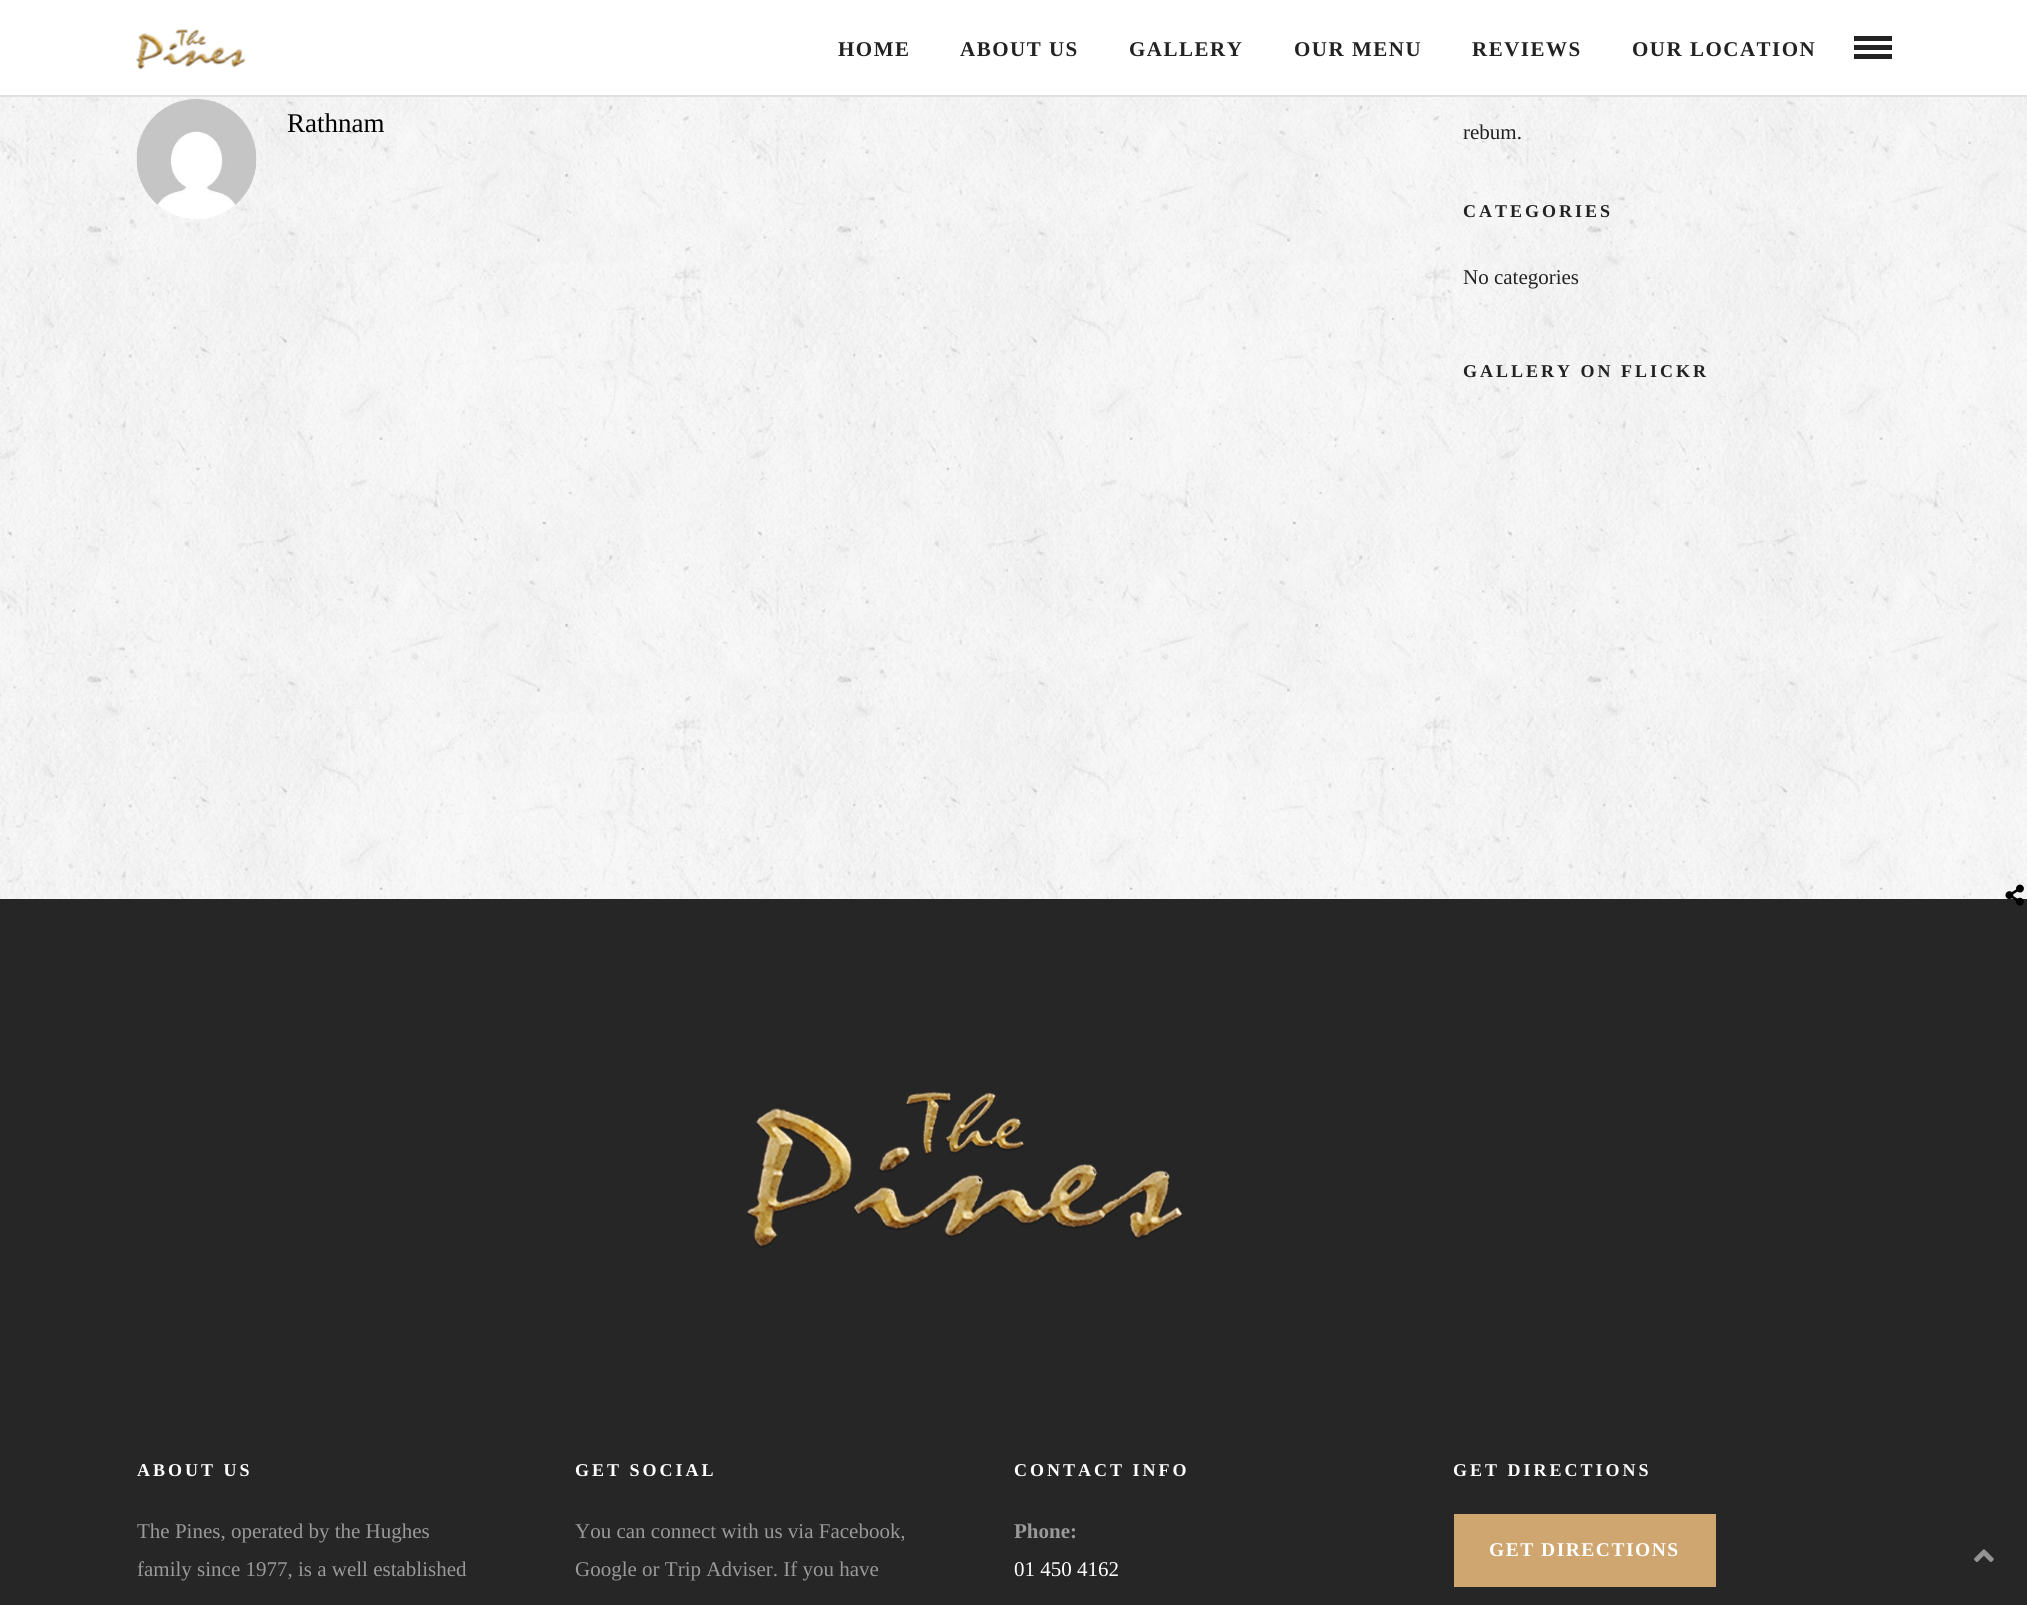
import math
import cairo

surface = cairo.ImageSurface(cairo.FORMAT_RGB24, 2027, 1605)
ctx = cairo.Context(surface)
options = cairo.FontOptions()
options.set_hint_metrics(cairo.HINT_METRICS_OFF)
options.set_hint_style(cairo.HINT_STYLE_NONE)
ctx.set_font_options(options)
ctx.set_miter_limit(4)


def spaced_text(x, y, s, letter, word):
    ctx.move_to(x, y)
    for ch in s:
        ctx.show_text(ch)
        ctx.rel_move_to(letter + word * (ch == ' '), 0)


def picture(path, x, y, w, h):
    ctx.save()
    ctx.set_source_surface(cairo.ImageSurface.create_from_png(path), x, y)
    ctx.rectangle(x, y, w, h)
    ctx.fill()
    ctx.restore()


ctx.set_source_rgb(1, 1, 1)
ctx.paint()
picture("img1.png", 0, 97, 2027, 802)
ctx.set_source_rgb(0.882, 0.882, 0.882)
ctx.rectangle(0, 95, 2027, 2)
ctx.fill()
picture("img2.png", 136, 29, 110, 41)
ctx.select_font_face("Liberation Serif", cairo.FONT_SLANT_NORMAL, cairo.FONT_WEIGHT_BOLD)
ctx.set_font_size(21)
ctx.set_source_rgb(0.133, 0.133, 0.133)
spaced_text(838, 56, "HOME", 1.5, 0)
spaced_text(960, 56, "ABOUT US", 1.5, 0)
spaced_text(1129, 56, "GALLERY", 1.5, 0)
spaced_text(1294, 56, "OUR MENU", 1.5, 0)
spaced_text(1472, 56, "REVIEWS", 1.5, 0)
spaced_text(1632, 56, "OUR LOCATION", 1.5, 0)
ctx.rectangle(1854, 36, 38, 5)
ctx.fill()
ctx.rectangle(1854, 45, 38, 5)
ctx.fill()
ctx.rectangle(1854, 54, 38, 5)
ctx.fill()
picture("img3.png", 136, 99, 121, 120)
ctx.select_font_face("Liberation Serif")
ctx.set_font_size(27)
ctx.set_source_rgb(0, 0, 0)
ctx.move_to(287, 132)
ctx.show_text("Rathnam")
ctx.set_font_size(21)
ctx.set_source_rgb(0.133, 0.133, 0.133)
ctx.move_to(1463, 139)
ctx.show_text("rebum.")
ctx.select_font_face("Liberation Serif", cairo.FONT_SLANT_NORMAL, cairo.FONT_WEIGHT_BOLD)
ctx.set_font_size(18)
spaced_text(1463, 217, "CATEGORIES", 3, 0)
ctx.select_font_face("Liberation Serif")
ctx.set_font_size(21)
ctx.move_to(1463, 284)
ctx.show_text("No categories")
ctx.select_font_face("Liberation Serif", cairo.FONT_SLANT_NORMAL, cairo.FONT_WEIGHT_BOLD)
ctx.set_font_size(18)
spaced_text(1463, 377, "GALLERY ON FLICKR", 3, 0)
ctx.set_source_rgb(0.149, 0.149, 0.149)
ctx.rectangle(0, 899, 2027, 706)
ctx.fill()
picture("img4.png", 2005, 884, 19, 22)
picture("img5.png", 746, 1091, 437, 157)
ctx.set_source_rgb(1, 1, 1)
spaced_text(137, 1476, "ABOUT US", 3, 0)
ctx.select_font_face("Liberation Serif")
ctx.set_font_size(21)
ctx.set_source_rgb(0.6, 0.6, 0.6)
ctx.move_to(137, 1538)
ctx.show_text("The Pines, operated by the Hughes")
ctx.move_to(137, 1576)
ctx.show_text("family since 1977, is a well established")
ctx.select_font_face("Liberation Serif", cairo.FONT_SLANT_NORMAL, cairo.FONT_WEIGHT_BOLD)
ctx.set_font_size(18)
ctx.set_source_rgb(1, 1, 1)
spaced_text(575, 1476, "GET SOCIAL", 3, 0)
ctx.select_font_face("Liberation Serif")
ctx.set_font_size(21)
ctx.set_source_rgb(0.6, 0.6, 0.6)
ctx.move_to(575, 1538)
ctx.show_text("You can connect with us via Facebook,")
ctx.move_to(575, 1576)
ctx.show_text("Google or Trip Adviser. If you have")
ctx.select_font_face("Liberation Serif", cairo.FONT_SLANT_NORMAL, cairo.FONT_WEIGHT_BOLD)
ctx.set_font_size(18)
ctx.set_source_rgb(1, 1, 1)
spaced_text(1014, 1476, "CONTACT INFO", 3, 0)
ctx.set_font_size(21)
ctx.set_source_rgb(0.6, 0.6, 0.6)
ctx.move_to(1014, 1538)
ctx.show_text("Phone:")
ctx.select_font_face("Liberation Serif")
ctx.set_source_rgb(1, 1, 1)
ctx.move_to(1014, 1576)
ctx.show_text("01 450 4162")
ctx.select_font_face("Liberation Serif", cairo.FONT_SLANT_NORMAL, cairo.FONT_WEIGHT_BOLD)
ctx.set_font_size(18)
spaced_text(1453, 1476, "GET DIRECTIONS", 3, 0)
ctx.set_source_rgb(0.812, 0.651, 0.439)
ctx.rectangle(1454, 1514, 262, 73)
ctx.fill()
ctx.set_font_size(19.5)
ctx.set_source_rgb(1, 1, 1)
spaced_text(1489, 1556, "GET DIRECTIONS", 1.5, 0)
picture("img6.png", 1974, 1549, 20, 13)
surface.write_to_png("page.png")
